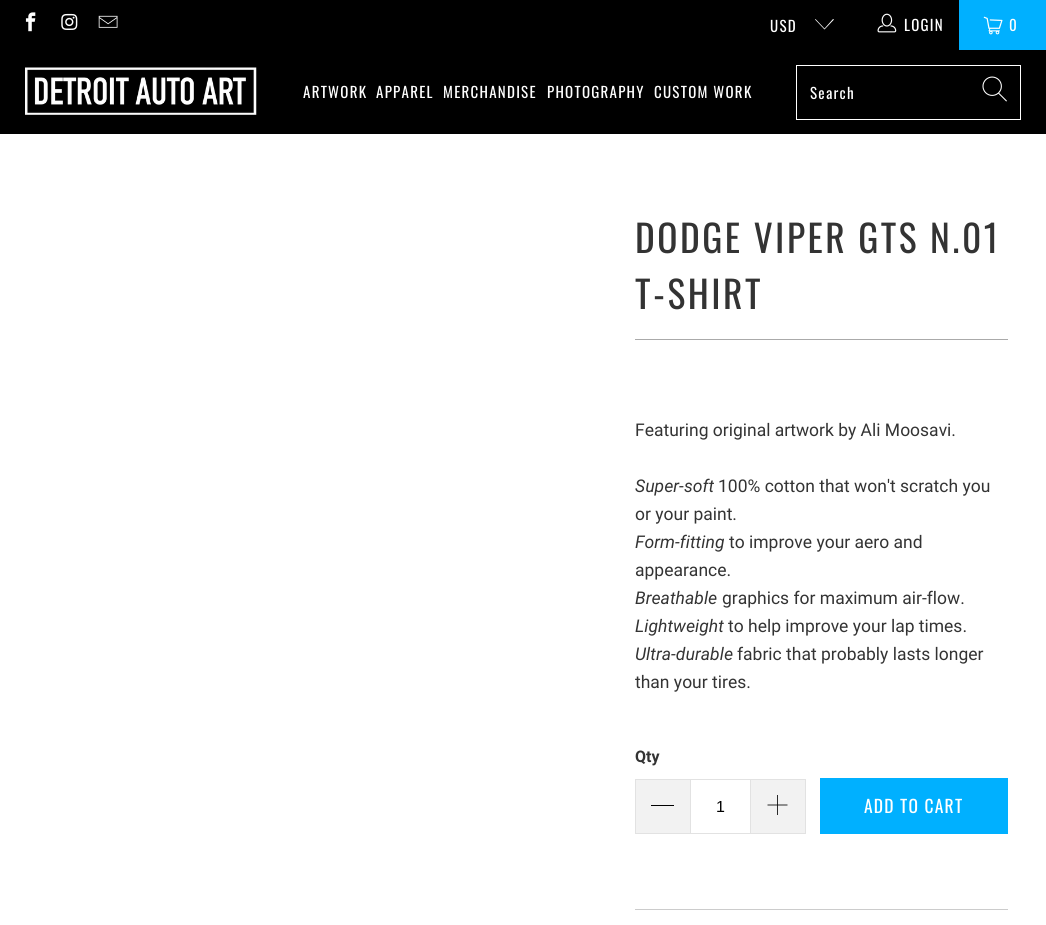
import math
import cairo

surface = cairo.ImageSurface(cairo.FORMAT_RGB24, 1046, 925)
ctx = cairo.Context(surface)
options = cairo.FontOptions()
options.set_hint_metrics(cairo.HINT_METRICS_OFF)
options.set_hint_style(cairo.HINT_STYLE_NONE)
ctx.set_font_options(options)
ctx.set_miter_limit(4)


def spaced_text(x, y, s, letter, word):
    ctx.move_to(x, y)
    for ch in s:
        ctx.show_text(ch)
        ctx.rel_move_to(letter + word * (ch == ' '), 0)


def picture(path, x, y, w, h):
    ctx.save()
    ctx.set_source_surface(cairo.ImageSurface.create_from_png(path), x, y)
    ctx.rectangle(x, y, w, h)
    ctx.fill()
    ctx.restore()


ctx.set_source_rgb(1, 1, 1)
ctx.paint()
ctx.set_source_rgb(0, 0, 0)
ctx.rectangle(0, 0, 959, 50)
ctx.fill()
picture("img1.png", 25, 12, 11, 20)
picture("img2.png", 61, 13, 17, 17)
picture("img3.png", 98, 15, 20, 13)
ctx.select_font_face("Oswald")
ctx.set_font_size(15)
ctx.set_source_rgb(1, 1, 1)
spaced_text(770, 32, "USD", 1.25, 0)
ctx.new_path()
ctx.move_to(824.5, 29.5)
ctx.line_to(815, 19.5)
ctx.line_to(815.5, 19)
ctx.line_to(824.5, 28.5)
ctx.line_to(833, 19)
ctx.line_to(834, 19.5)
ctx.close_path()
ctx.fill()
picture("img4.png", 877, 13, 20, 20)
spaced_text(904, 31, "LOGIN", 1.25, 0)
ctx.set_source_rgb(0, 0.69, 1)
ctx.rectangle(959, 0, 87, 50)
ctx.fill()
picture("img5.png", 983, 16, 20, 19)
ctx.set_source_rgb(1, 1, 1)
spaced_text(1009, 31, "0", 1.25, 0)
ctx.set_source_rgb(0, 0, 0)
ctx.rectangle(0, 50, 1046, 84)
ctx.fill()
picture("img6.png", 25, 67, 232, 48)
ctx.set_source_rgb(1, 1, 1)
spaced_text(303, 98, "ARTWORK", 1.25, 0)
spaced_text(376, 98, "APPAREL", 1.25, 0)
spaced_text(443, 98, "MERCHANDISE", 1.25, 0)
spaced_text(547, 98, "PHOTOGRAPHY", 1.25, 0)
spaced_text(654, 98, "CUSTOM WORK", 1.25, 0)
ctx.rectangle(796.5, 65.5, 224, 54)
ctx.set_line_width(1)
ctx.stroke()
spaced_text(810, 99, "Search", 1.25, 0)
picture("img7.png", 982, 76, 25, 26)
ctx.set_font_size(37.5)
ctx.set_source_rgb(0.2, 0.2, 0.2)
spaced_text(635, 253, "DODGE VIPER GTS N.01", 2.5, 0)
spaced_text(635, 309, "T-SHIRT", 2.5, 0)
ctx.set_source_rgb(0.667, 0.667, 0.667)
ctx.rectangle(635, 339, 373, 1)
ctx.fill()
ctx.select_font_face("Roboto")
ctx.set_font_size(17.5)
ctx.set_source_rgb(0.2, 0.2, 0.2)
ctx.move_to(635, 436)
ctx.show_text("Featuring original artwork by Ali Moosavi.")
ctx.select_font_face("Roboto", cairo.FONT_SLANT_ITALIC)
ctx.move_to(635, 492)
ctx.show_text("Super-soft")
ctx.select_font_face("Roboto")
ctx.move_to(718, 492)
ctx.show_text("100% cotton that won't scratch you")
ctx.move_to(635, 520)
ctx.show_text("or your paint.")
ctx.select_font_face("Roboto", cairo.FONT_SLANT_ITALIC)
ctx.move_to(635, 548)
ctx.show_text("Form-fitting")
ctx.select_font_face("Roboto")
ctx.move_to(729, 548)
ctx.show_text("to improve your aero and")
ctx.move_to(635, 576)
ctx.show_text("appearance.")
ctx.select_font_face("Roboto", cairo.FONT_SLANT_ITALIC)
ctx.move_to(635, 604)
ctx.show_text("Breathable")
ctx.select_font_face("Roboto")
ctx.move_to(722, 604)
ctx.show_text("graphics for maximum air-flow.")
ctx.select_font_face("Roboto", cairo.FONT_SLANT_ITALIC)
ctx.move_to(635, 632)
ctx.show_text("Lightweight")
ctx.select_font_face("Roboto")
ctx.move_to(728, 632)
ctx.show_text("to help improve your lap times.")
ctx.select_font_face("Roboto", cairo.FONT_SLANT_ITALIC)
ctx.move_to(635, 660)
ctx.show_text("Ultra-durable")
ctx.select_font_face("Roboto")
ctx.move_to(737, 660)
ctx.show_text("fabric that probably lasts longer")
ctx.move_to(635, 688)
ctx.show_text("than your tires.")
ctx.select_font_face("Roboto", cairo.FONT_SLANT_NORMAL, cairo.FONT_WEIGHT_BOLD)
ctx.set_font_size(16)
ctx.move_to(635, 762)
ctx.show_text("Qty")
ctx.set_source_rgb(0.949, 0.949, 0.949)
ctx.rectangle(636, 780, 54, 53)
ctx.fill()
ctx.set_source_rgb(0.886, 0.886, 0.886)
ctx.rectangle(635, 779, 55, 1)
ctx.fill()
ctx.rectangle(635, 833, 55, 1)
ctx.fill()
ctx.rectangle(635, 779, 1, 55)
ctx.fill()
ctx.set_source_rgb(0, 0, 0)
ctx.rectangle(651, 805, 23, 1)
ctx.fill()
ctx.rectangle(690.5, 779.5, 60, 54)
ctx.set_source_rgb(0.886, 0.886, 0.886)
ctx.stroke()
ctx.select_font_face("Liberation Sans")
ctx.set_source_rgb(0, 0, 0)
ctx.move_to(716, 812)
ctx.show_text("1")
ctx.set_source_rgb(0.949, 0.949, 0.949)
ctx.rectangle(751, 780, 54, 53)
ctx.fill()
ctx.set_source_rgb(0.886, 0.886, 0.886)
ctx.rectangle(751, 779, 55, 1)
ctx.fill()
ctx.rectangle(805, 779, 1, 55)
ctx.fill()
ctx.rectangle(751, 833, 55, 1)
ctx.fill()
picture("img8.png", 767, 795, 21, 20)
ctx.set_source_rgb(0, 0.69, 1)
ctx.rectangle(820, 778, 188, 56)
ctx.fill()
ctx.select_font_face("Oswald")
ctx.set_font_size(17.5)
ctx.set_source_rgb(1, 1, 1)
spaced_text(864, 813, "ADD TO CART", 1.25, 0)
ctx.set_source_rgb(0.8, 0.8, 0.8)
ctx.rectangle(635, 909, 373, 1)
ctx.fill()
surface.write_to_png("page.png")
